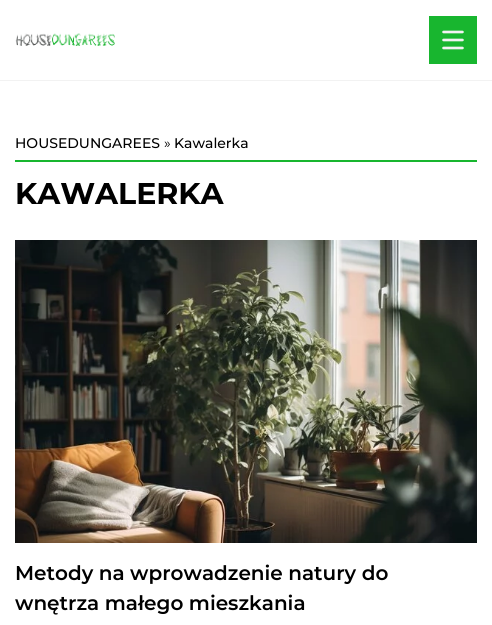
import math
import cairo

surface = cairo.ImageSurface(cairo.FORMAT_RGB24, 492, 625)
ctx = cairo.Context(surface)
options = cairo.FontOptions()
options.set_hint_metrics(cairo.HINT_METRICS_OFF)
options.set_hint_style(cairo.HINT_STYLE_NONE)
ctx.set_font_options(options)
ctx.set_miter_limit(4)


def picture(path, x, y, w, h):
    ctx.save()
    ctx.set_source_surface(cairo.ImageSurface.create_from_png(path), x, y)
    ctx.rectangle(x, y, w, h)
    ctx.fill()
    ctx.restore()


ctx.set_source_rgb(1, 1, 1)
ctx.paint()
ctx.set_source_rgb(0.949, 0.949, 0.949)
ctx.rectangle(0, 80, 492, 1)
ctx.fill()
picture("img1.png", 15, 33, 100, 13)
ctx.set_source_rgb(0.094, 0.714, 0.184)
ctx.rectangle(429, 16, 48, 48)
ctx.fill()
ctx.new_path()
ctx.move_to(443.5, 32)
ctx.line_to(462.5, 32)
ctx.move_to(443.5, 40)
ctx.line_to(462.5, 40)
ctx.move_to(462.5, 48)
ctx.line_to(443.5, 48)
ctx.set_source_rgb(0.949, 0.949, 0.949)
ctx.set_line_width(2.6)
ctx.set_line_cap(cairo.LINE_CAP_ROUND)
ctx.stroke()
ctx.set_source_rgb(0.094, 0.714, 0.184)
ctx.rectangle(15, 160, 462, 2)
ctx.fill()
ctx.select_font_face("Montserrat Medium")
ctx.set_font_size(14)
ctx.set_source_rgb(0, 0, 0)
ctx.move_to(15, 148)
ctx.show_text("HOUSEDUNGAREES")
ctx.select_font_face("Montserrat")
ctx.move_to(164, 148)
ctx.show_text("»")
ctx.select_font_face("Montserrat Medium")
ctx.move_to(174, 148)
ctx.show_text("Kawalerka")
ctx.select_font_face("Montserrat", cairo.FONT_SLANT_NORMAL, cairo.FONT_WEIGHT_BOLD)
ctx.set_font_size(30)
ctx.move_to(15, 204)
ctx.show_text("KAWALERKA")
picture("img2.png", 15, 240, 462, 303)
ctx.select_font_face("Montserrat SemiBold")
ctx.set_font_size(20)
ctx.move_to(15, 580)
ctx.show_text("Metody na wprowadzenie natury do")
ctx.move_to(15, 610)
ctx.show_text("wnętrza małego mieszkania")
surface.write_to_png("page.png")
